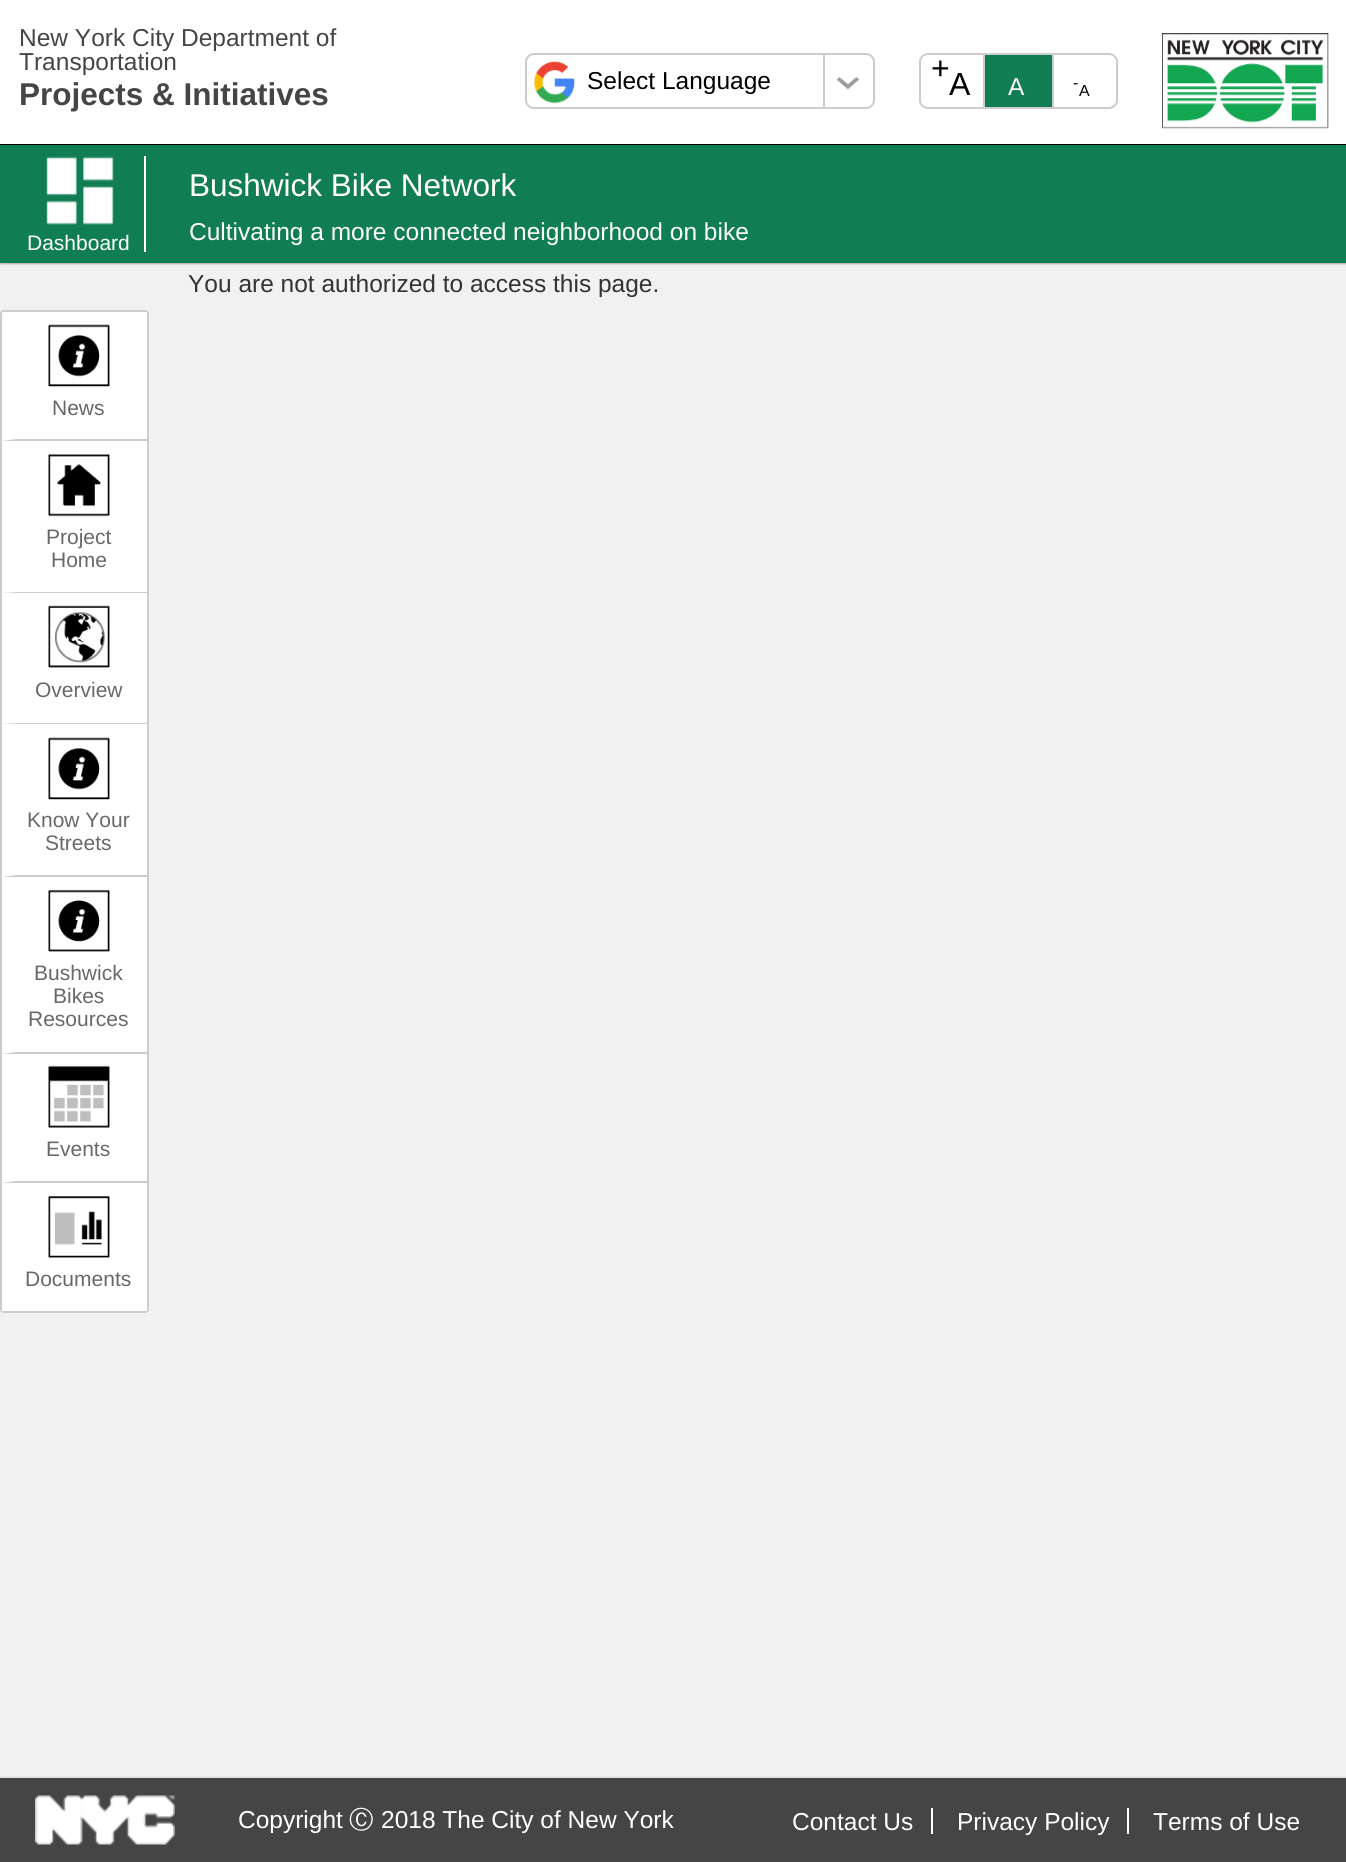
import math
import cairo

surface = cairo.ImageSurface(cairo.FORMAT_RGB24, 1346, 1862)
ctx = cairo.Context(surface)
options = cairo.FontOptions()
options.set_hint_metrics(cairo.HINT_METRICS_OFF)
options.set_hint_style(cairo.HINT_STYLE_NONE)
ctx.set_font_options(options)
ctx.set_miter_limit(4)


def round_rect(x, y, w, h, r):
    ctx.new_sub_path()
    for i, (u, v) in enumerate([(x + w - r, y + h - r), (x + r, y + h - r), (x + r, y + r), (x + w - r, y + r)]):
        ctx.arc(u, v, r, i * math.pi / 2, (i + 1) * math.pi / 2)
    ctx.close_path()


def shadow(x, y, w, h, r, blur, alpha):
    ctx.push_group_with_content(cairo.CONTENT_ALPHA)
    ctx.set_operator(cairo.OPERATOR_SOURCE)
    for i in range(15, -16, -2):
        e = blur * i / 6
        if min(w, h) + 2 * e > 0:
            ctx.set_source_rgba(0, 0, 0, alpha * math.erfc((i - 1) / 8.5) / 2)
            round_rect(x - e, y - e, w + 2 * e, h + 2 * e, max(0, min(r + e + blur * .6, min(w, h) / 2 + e)))
            ctx.fill()
    ctx.mask(ctx.pop_group())


def picture(path, x, y, w, h):
    ctx.save()
    ctx.set_source_surface(cairo.ImageSurface.create_from_png(path), x, y)
    ctx.rectangle(x, y, w, h)
    ctx.fill()
    ctx.restore()


ctx.set_source_rgb(0.945, 0.945, 0.945)
ctx.paint()
ctx.set_source_rgb(1, 1, 1)
ctx.rectangle(0, 0, 1346, 144)
ctx.fill()
ctx.set_source_rgb(0, 0, 0)
ctx.rectangle(0, 144, 1346, 1)
ctx.fill()
ctx.select_font_face("Liberation Sans")
ctx.set_font_size(24.5)
ctx.set_source_rgb(0.271, 0.271, 0.271)
ctx.move_to(19, 46)
ctx.show_text("New York City Department of")
ctx.move_to(19, 70)
ctx.show_text("Transportation")
ctx.select_font_face("Liberation Sans", cairo.FONT_SLANT_NORMAL, cairo.FONT_WEIGHT_BOLD)
ctx.set_font_size(31.5)
ctx.move_to(19, 105)
ctx.show_text("Projects & Initiatives")
picture("img1.png", 533, 61, 42, 43)
picture("img2.png", 836, 76, 24, 14)
ctx.set_source_rgb(0.8, 0.8, 0.8)
ctx.rectangle(823, 53, 2, 56)
ctx.fill()
round_rect(526, 54, 348, 54, 8)
ctx.stroke()
ctx.select_font_face("Liberation Sans")
ctx.set_font_size(24.5)
ctx.set_source_rgb(0, 0, 0)
ctx.move_to(587, 89)
ctx.show_text("Select Language")
ctx.new_path()
ctx.move_to(928, 54)
ctx.line_to(984, 54)
ctx.line_to(984, 108)
ctx.line_to(928, 108)
ctx.curve_to(923.5, 108, 920, 104.5, 920, 100)
ctx.line_to(920, 62)
ctx.curve_to(920, 57.5, 923.5, 54, 928, 54)
ctx.close_path()
ctx.set_source_rgb(0.8, 0.8, 0.8)
ctx.stroke()
ctx.set_font_size(32)
ctx.set_source_rgb(0, 0, 0)
ctx.move_to(931, 79)
ctx.show_text("+")
ctx.move_to(949, 95)
ctx.show_text("A")
ctx.set_source_rgb(0.063, 0.49, 0.325)
ctx.rectangle(985, 55, 67, 52)
ctx.fill()
ctx.set_source_rgb(0.8, 0.8, 0.8)
ctx.rectangle(985, 53, 67, 2)
ctx.fill()
ctx.rectangle(985, 107, 67, 2)
ctx.fill()
ctx.set_font_size(24.5)
ctx.set_source_rgb(1, 1, 1)
ctx.move_to(1008, 95)
ctx.show_text("A")
ctx.new_path()
ctx.move_to(1053, 54)
ctx.line_to(1109, 54)
ctx.curve_to(1113.5, 54, 1117, 57.5, 1117, 62)
ctx.line_to(1117, 100)
ctx.curve_to(1117, 104.5, 1113.5, 108, 1109, 108)
ctx.line_to(1053, 108)
ctx.close_path()
ctx.set_source_rgb(0.8, 0.8, 0.8)
ctx.stroke()
ctx.set_font_size(16)
ctx.set_source_rgb(0, 0, 0)
ctx.move_to(1073, 88)
ctx.show_text("-")
ctx.move_to(1079, 96)
ctx.show_text("A")
picture("img3.png", 1162, 33, 167, 96)
ctx.set_source_rgb(0.608, 0.608, 0.608)
shadow(0, 147, 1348, 117, 0, 1, 0.8)
ctx.set_source_rgb(0.063, 0.49, 0.325)
ctx.rectangle(0, 145, 1346, 118)
ctx.fill()
ctx.set_source_rgb(1, 1, 1)
ctx.rectangle(144, 156, 2, 96)
ctx.fill()
picture("img4.png", 46, 156, 68, 69)
ctx.set_font_size(21)
ctx.move_to(27, 250)
ctx.show_text("Dashboard")
ctx.set_font_size(31.5)
ctx.move_to(189, 196)
ctx.show_text("Bushwick Bike Network")
ctx.set_font_size(24.5)
ctx.move_to(189, 240)
ctx.show_text("Cultivating a more connected neighborhood on bike")
ctx.set_source_rgb(0.2, 0.2, 0.2)
ctx.move_to(188, 292)
ctx.show_text("You are not authorized to access this page.")
round_rect(1, 311, 147, 1001, 3)
ctx.set_source_rgb(0.8, 0.8, 0.8)
ctx.stroke()
ctx.set_source_rgb(1, 1, 1)
ctx.rectangle(2, 312, 145, 999)
ctx.fill()
ctx.set_source_rgb(0.8, 0.8, 0.8)
ctx.new_path()
ctx.move_to(147, 441)
ctx.line_to(2, 441)
ctx.line_to(16, 439)
ctx.line_to(147, 439)
ctx.close_path()
ctx.fill()
picture("img5.png", 48, 324, 62, 63)
ctx.set_font_size(21)
ctx.set_source_rgb(0.408, 0.408, 0.408)
ctx.move_to(52, 415)
ctx.show_text("News")
ctx.set_source_rgb(0.8, 0.8, 0.8)
ctx.new_path()
ctx.move_to(147, 593)
ctx.line_to(2, 593)
ctx.line_to(16, 592)
ctx.line_to(147, 592)
ctx.close_path()
ctx.fill()
picture("img6.png", 48, 454, 62, 63)
ctx.set_source_rgb(0.408, 0.408, 0.408)
ctx.move_to(46, 544)
ctx.show_text("Project")
ctx.move_to(51, 567)
ctx.show_text("Home")
ctx.set_source_rgb(0.8, 0.8, 0.8)
ctx.new_path()
ctx.move_to(147, 724)
ctx.line_to(2, 724)
ctx.line_to(16, 723)
ctx.line_to(147, 723)
ctx.close_path()
ctx.fill()
picture("img7.png", 48, 605, 62, 63)
ctx.set_source_rgb(0.408, 0.408, 0.408)
ctx.move_to(35, 697)
ctx.show_text("Overview")
ctx.set_source_rgb(0.8, 0.8, 0.8)
ctx.new_path()
ctx.move_to(147, 877)
ctx.line_to(2, 877)
ctx.line_to(16, 875)
ctx.line_to(147, 875)
ctx.close_path()
ctx.fill()
picture("img5.png", 48, 737, 62, 63)
ctx.set_source_rgb(0.408, 0.408, 0.408)
ctx.move_to(27, 827)
ctx.show_text("Know Your")
ctx.move_to(45, 850)
ctx.show_text("Streets")
ctx.set_source_rgb(0.8, 0.8, 0.8)
ctx.new_path()
ctx.move_to(147, 1054)
ctx.line_to(2, 1054)
ctx.line_to(16, 1052)
ctx.line_to(147, 1052)
ctx.close_path()
ctx.fill()
picture("img8.png", 48, 889, 62, 63)
ctx.set_source_rgb(0.408, 0.408, 0.408)
ctx.move_to(34, 980)
ctx.show_text("Bushwick")
ctx.move_to(53, 1003)
ctx.show_text("Bikes")
ctx.move_to(28, 1026)
ctx.show_text("Resources")
ctx.set_source_rgb(0.8, 0.8, 0.8)
ctx.new_path()
ctx.move_to(147, 1183)
ctx.line_to(2, 1183)
ctx.line_to(16, 1181)
ctx.line_to(147, 1181)
ctx.close_path()
ctx.fill()
picture("img9.png", 48, 1065, 62, 63)
ctx.set_source_rgb(0.408, 0.408, 0.408)
ctx.move_to(46, 1156)
ctx.show_text("Events")
picture("img10.png", 48, 1196, 62, 62)
ctx.move_to(25, 1286)
ctx.show_text("Documents")
ctx.set_source_rgb(0.271, 0.271, 0.271)
ctx.rectangle(0, 1778, 1346, 84)
ctx.fill()
ctx.set_source_rgb(0.898, 0.898, 0.898)
ctx.rectangle(0, 1776, 1346, 2)
ctx.fill()
picture("img11.png", 35, 1795, 140, 50)
ctx.set_font_size(24.5)
ctx.set_source_rgb(1, 1, 1)
ctx.move_to(238, 1828)
ctx.show_text("Copyright")
ctx.select_font_face("WenQuanYi Zen Hei Medium")
ctx.move_to(349, 1828)
ctx.show_text("Ⓒ")
ctx.select_font_face("Liberation Sans")
ctx.move_to(381, 1828)
ctx.show_text("2018 The City of New York")
ctx.rectangle(931, 1808, 2, 26)
ctx.fill()
ctx.move_to(792, 1830)
ctx.show_text("Contact Us")
ctx.rectangle(1127, 1808, 2, 26)
ctx.fill()
ctx.move_to(957, 1830)
ctx.show_text("Privacy Policy")
ctx.move_to(1153, 1830)
ctx.show_text("Terms of Use")
surface.write_to_png("page.png")
